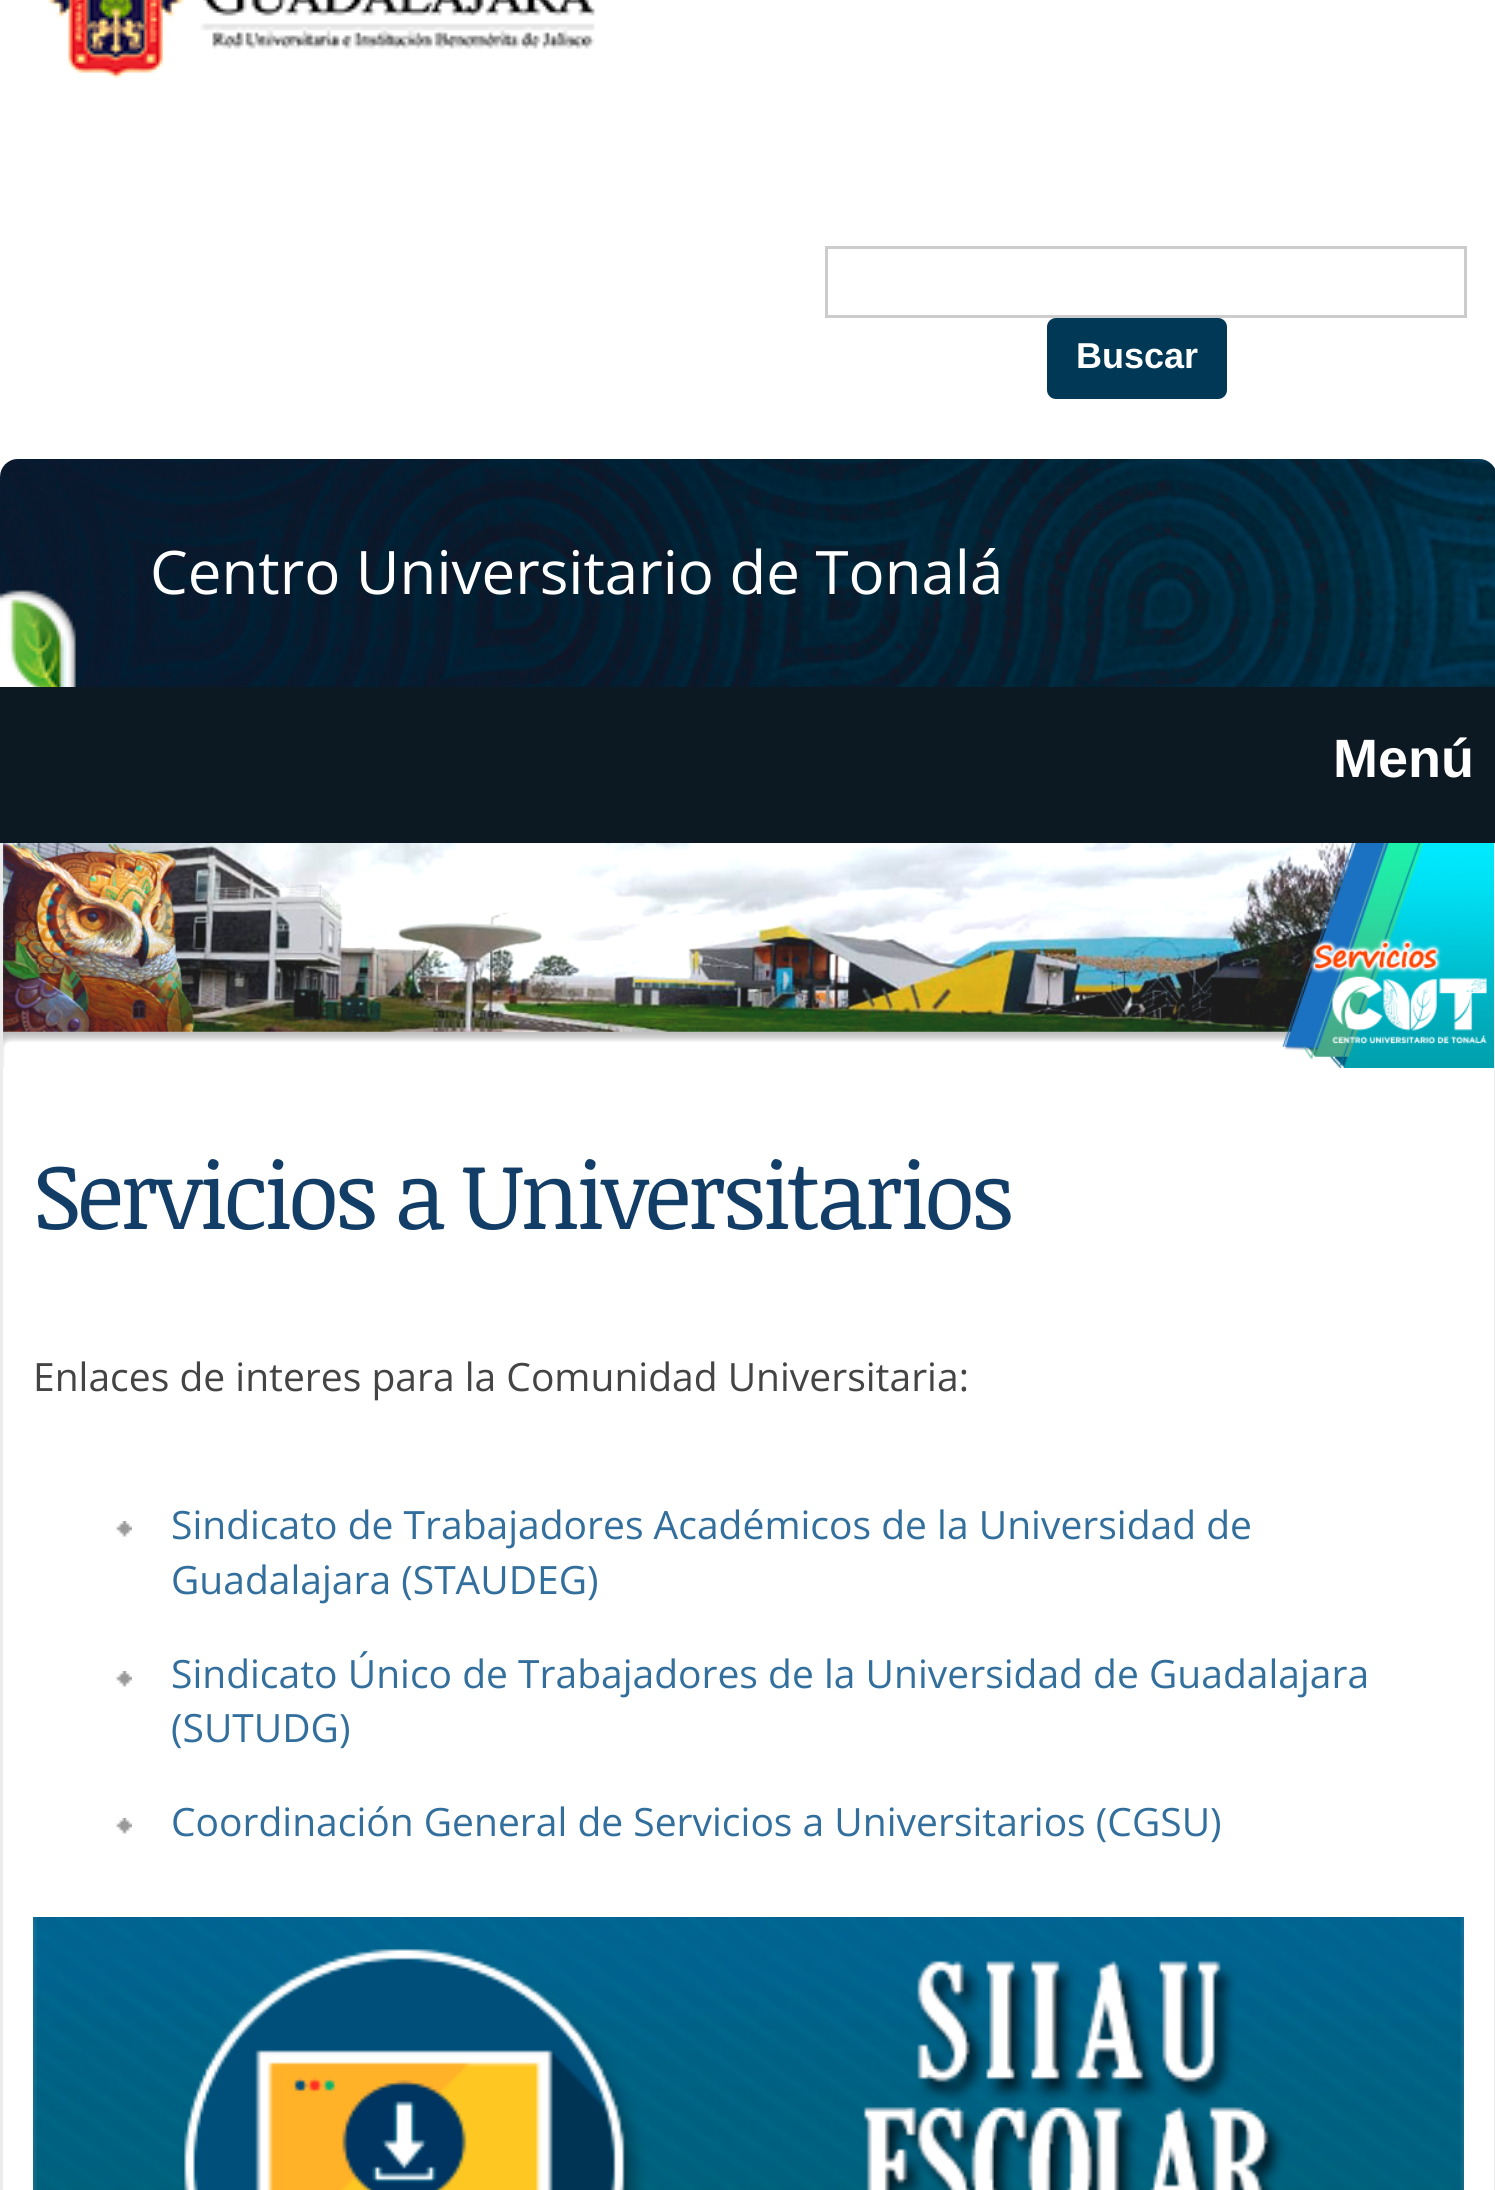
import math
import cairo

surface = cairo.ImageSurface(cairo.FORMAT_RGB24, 1495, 2190)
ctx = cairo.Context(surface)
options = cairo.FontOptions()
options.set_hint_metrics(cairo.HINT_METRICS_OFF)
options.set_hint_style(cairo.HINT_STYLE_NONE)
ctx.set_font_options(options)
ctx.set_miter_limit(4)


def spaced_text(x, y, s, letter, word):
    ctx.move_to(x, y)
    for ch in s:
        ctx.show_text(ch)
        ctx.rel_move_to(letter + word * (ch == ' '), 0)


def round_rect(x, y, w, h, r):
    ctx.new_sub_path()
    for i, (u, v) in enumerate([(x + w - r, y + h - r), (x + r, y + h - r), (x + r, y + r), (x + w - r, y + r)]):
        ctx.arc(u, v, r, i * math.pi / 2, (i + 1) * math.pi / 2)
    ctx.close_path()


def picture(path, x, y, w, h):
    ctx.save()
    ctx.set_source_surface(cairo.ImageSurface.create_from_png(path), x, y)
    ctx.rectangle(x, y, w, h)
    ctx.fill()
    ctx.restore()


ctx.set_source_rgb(1, 1, 1)
ctx.paint()
picture("img1.png", 47, 0, 548, 78)
ctx.rectangle(826.5, 247.5, 639, 69)
ctx.set_source_rgb(0.8, 0.8, 0.8)
ctx.set_line_width(3)
ctx.stroke()
ctx.set_source_rgb(0, 0.22, 0.337)
round_rect(1047, 318, 180, 81, 9)
ctx.fill()
ctx.select_font_face("Liberation Sans", cairo.FONT_SLANT_NORMAL, cairo.FONT_WEIGHT_BOLD)
ctx.set_font_size(36)
ctx.set_source_rgb(1, 1, 1)
ctx.move_to(1076, 368)
ctx.show_text("Buscar")
picture("img2.png", 0, 459, 1495, 228)
ctx.select_font_face("Open Sans")
ctx.set_font_size(60)
ctx.move_to(150, 594)
ctx.show_text("Centro Universitario de Tonalá")
ctx.set_source_rgb(0.047, 0.098, 0.137)
ctx.rectangle(0, 687, 1495, 156)
ctx.fill()
ctx.select_font_face("Liberation Sans", cairo.FONT_SLANT_NORMAL, cairo.FONT_WEIGHT_BOLD)
ctx.set_font_size(54)
ctx.set_source_rgb(1, 1, 1)
ctx.move_to(1333, 777)
ctx.show_text("Menú")
ctx.set_source_rgb(0.925, 0.925, 0.925)
ctx.rectangle(1494, 843, 1, 1347)
ctx.fill()
ctx.rectangle(0, 843, 3, 1347)
ctx.fill()
picture("img3.png", 3, 843, 1491, 225)
ctx.select_font_face("Noticia Text")
ctx.set_font_size(93)
ctx.set_source_rgb(0.071, 0.239, 0.404)
spaced_text(33, 1229, "Servicios a Universitarios", -4.65, 0)
ctx.select_font_face("Open Sans")
ctx.set_font_size(39)
ctx.set_source_rgb(0.267, 0.267, 0.267)
ctx.move_to(33, 1391)
ctx.show_text("Enlaces de interes para la Comunidad Universitaria:")
picture("img4.png", 116, 1521, 16, 16)
ctx.set_source_rgb(0.2, 0.435, 0.616)
ctx.move_to(171, 1539)
ctx.show_text("Sindicato de Trabajadores Académicos de la Universidad de")
ctx.move_to(171, 1594)
ctx.show_text("Guadalajara (STAUDEG)")
picture("img4.png", 116, 1671, 16, 16)
ctx.move_to(171, 1688)
ctx.show_text("Sindicato Único de Trabajadores de la Universidad de Guadalajara")
ctx.move_to(171, 1742)
ctx.show_text("(SUTUDG)")
picture("img4.png", 116, 1818, 16, 16)
ctx.move_to(171, 1836)
ctx.show_text("Coordinación General de Servicios a Universitarios (CGSU)")
picture("img5.png", 33, 1917, 1431, 273)
surface.write_to_png("page.png")
